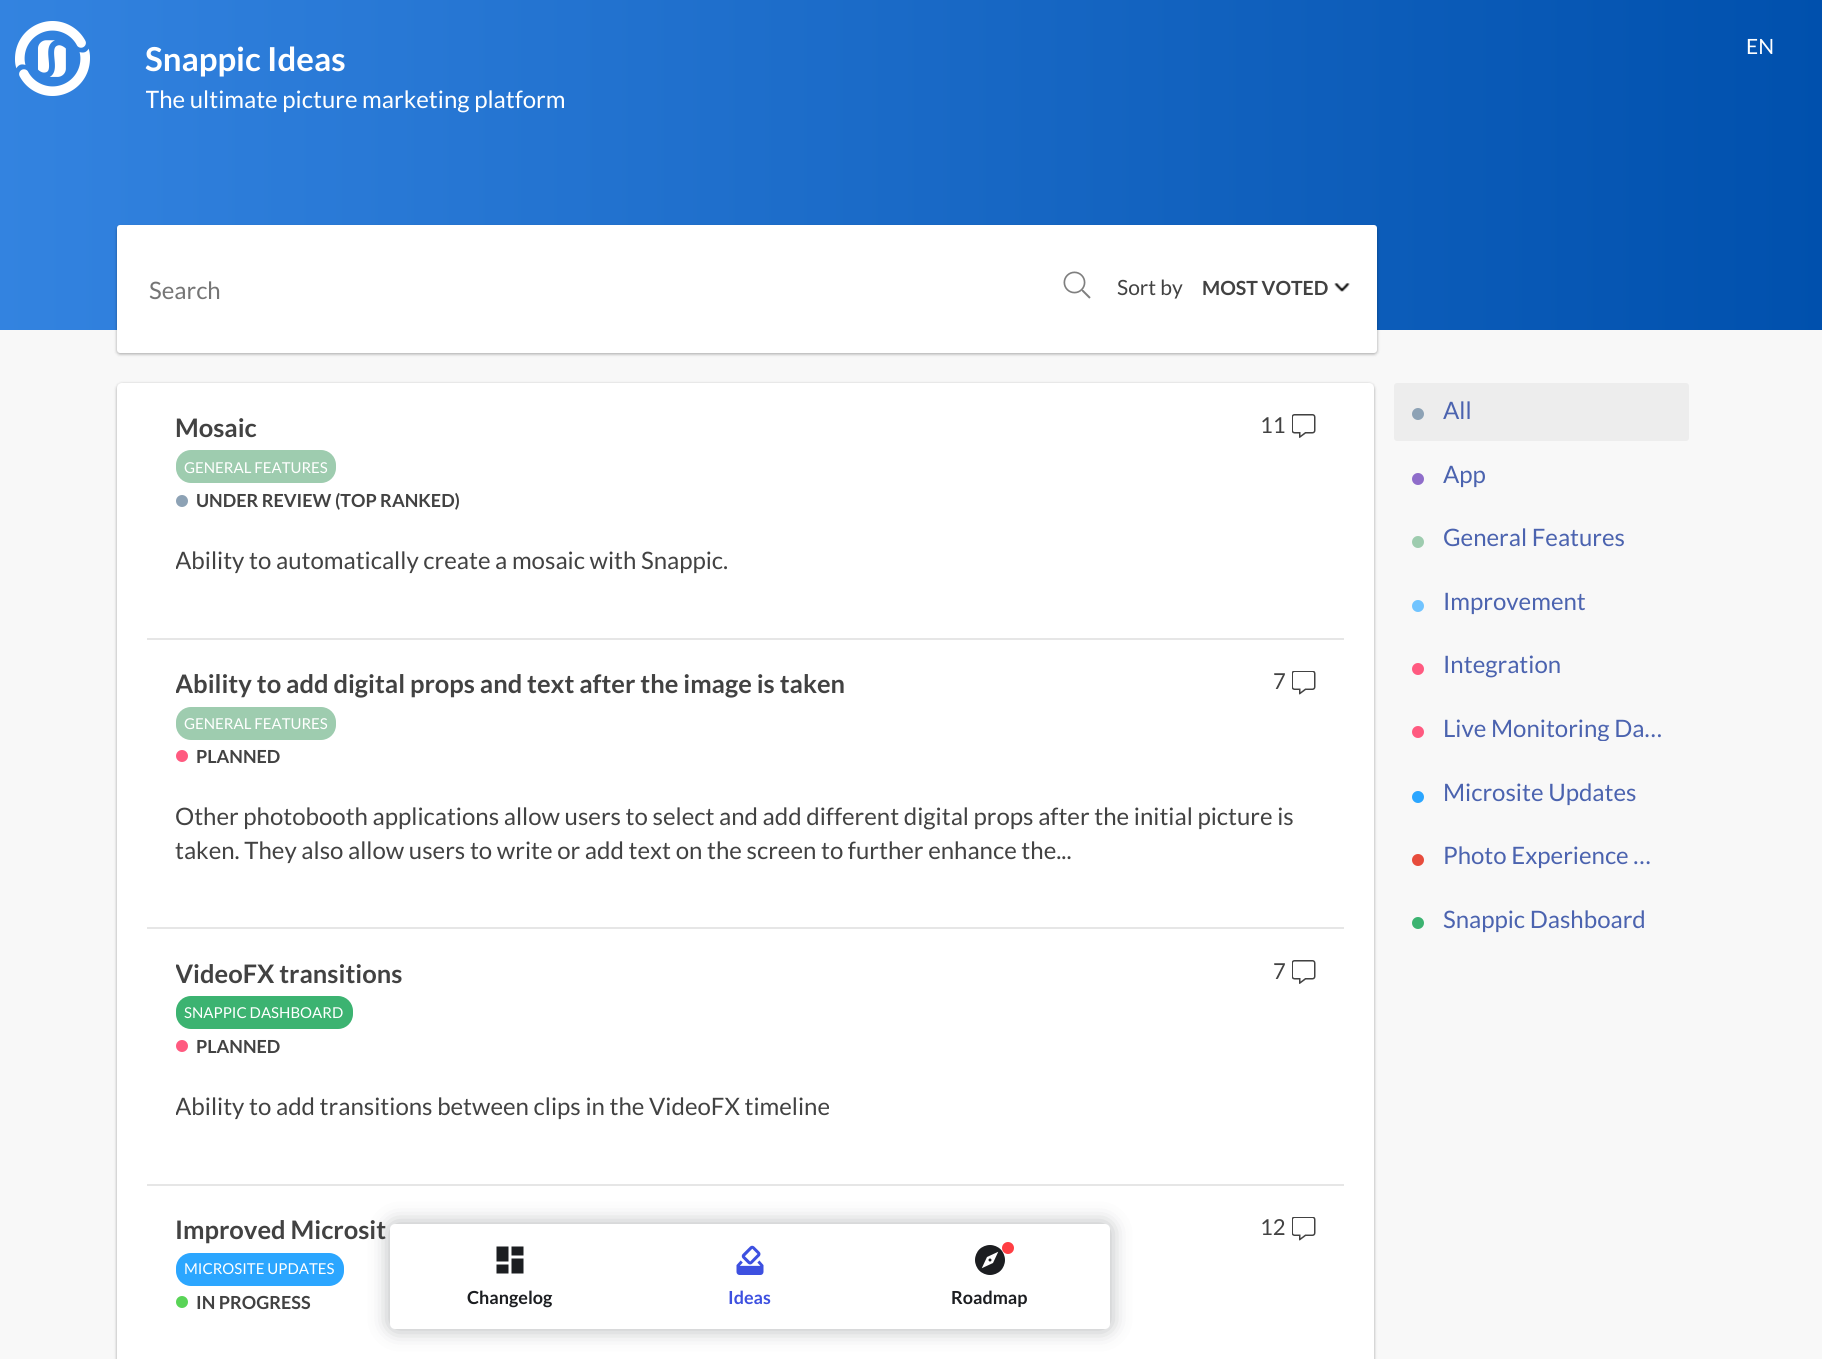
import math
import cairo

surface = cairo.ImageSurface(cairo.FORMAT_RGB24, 1822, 1359)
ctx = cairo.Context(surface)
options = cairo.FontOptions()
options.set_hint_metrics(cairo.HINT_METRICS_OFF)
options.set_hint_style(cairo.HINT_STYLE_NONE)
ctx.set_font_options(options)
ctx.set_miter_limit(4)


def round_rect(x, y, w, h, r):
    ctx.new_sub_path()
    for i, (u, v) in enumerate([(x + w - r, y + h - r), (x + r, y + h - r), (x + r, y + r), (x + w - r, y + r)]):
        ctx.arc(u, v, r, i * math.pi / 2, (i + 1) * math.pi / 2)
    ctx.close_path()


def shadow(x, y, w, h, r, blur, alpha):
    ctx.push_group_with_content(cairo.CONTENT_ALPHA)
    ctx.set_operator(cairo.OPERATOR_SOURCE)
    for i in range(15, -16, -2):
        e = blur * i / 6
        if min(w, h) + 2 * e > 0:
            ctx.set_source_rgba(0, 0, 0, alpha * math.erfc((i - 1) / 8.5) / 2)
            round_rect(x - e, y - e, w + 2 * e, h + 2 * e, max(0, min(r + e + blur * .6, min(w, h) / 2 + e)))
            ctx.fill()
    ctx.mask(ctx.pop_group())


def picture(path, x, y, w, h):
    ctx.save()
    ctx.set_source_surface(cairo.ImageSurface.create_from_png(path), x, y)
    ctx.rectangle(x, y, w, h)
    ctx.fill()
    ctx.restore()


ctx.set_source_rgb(0.969, 0.969, 0.969)
ctx.paint()
gradient = cairo.LinearGradient(0, 105, 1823, 105)
gradient.add_color_stop_rgba(0, 0.2, 0.514, 0.878, 1)
gradient.add_color_stop_rgba(1, 0, 0.314, 0.678, 1)
ctx.set_source(gradient)
ctx.rectangle(0, 0, 1822, 210)
ctx.fill()
ctx.select_font_face("Lato", cairo.FONT_SLANT_NORMAL, cairo.FONT_WEIGHT_BOLD)
ctx.set_font_size(33)
ctx.set_source_rgb(1, 1, 1)
ctx.move_to(145, 71)
ctx.show_text("Snappic Ideas")
picture("img1.png", 15, 21, 75, 75)
ctx.select_font_face("Lato")
ctx.set_font_size(21)
ctx.move_to(1746, 54)
ctx.show_text("EN")
ctx.save()
ctx.rectangle(146, 83, 1533, 30)
ctx.clip()
ctx.set_font_size(24)
ctx.move_to(145, 108)
ctx.show_text("The ultimate picture marketing platform")
ctx.restore()
gradient = cairo.LinearGradient(0, 165, 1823, 165)
gradient.add_color_stop_rgba(0, 0.2, 0.514, 0.878, 1)
gradient.add_color_stop_rgba(1, 0, 0.314, 0.678, 1)
ctx.set_source(gradient)
ctx.rectangle(0, 210, 1822, 120)
ctx.fill()
ctx.set_source_rgb(0, 0, 0)
shadow(117, 227, 1260, 127, 3, 1.5, 0.24)
shadow(117, 227, 1260, 127, 3, 2, 0.12)
ctx.set_source_rgb(1, 1, 1)
round_rect(117, 225, 1260, 128, 3)
ctx.fill()
ctx.set_font_size(24)
ctx.set_source_rgb(0.459, 0.459, 0.459)
ctx.move_to(149, 299)
ctx.show_text("Search")
picture("img2.png", 1063, 271, 28, 28)
ctx.set_font_size(21)
ctx.set_source_rgb(0.259, 0.259, 0.259)
ctx.move_to(1117, 295)
ctx.show_text("Sort by")
picture("img3.png", 1334, 283, 16, 9)
ctx.select_font_face("Lato", cairo.FONT_SLANT_NORMAL, cairo.FONT_WEIGHT_BOLD)
ctx.set_font_size(19.5)
ctx.move_to(1202, 295)
ctx.show_text("MOST VOTED")
ctx.set_source_rgb(0, 0, 0)
shadow(117, 384, 1257, 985, 5, 1.5, 0.24)
shadow(117, 384, 1257, 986, 5, 2, 0.12)
ctx.set_source_rgb(1, 1, 1)
ctx.new_path()
ctx.move_to(122, 383)
ctx.line_to(1369, 383)
ctx.curve_to(1372, 383, 1374, 385, 1374, 388)
ctx.line_to(1374, 1359)
ctx.line_to(117, 1359)
ctx.line_to(117, 388)
ctx.curve_to(117, 385, 119, 383, 122, 383)
ctx.close_path()
ctx.fill()
ctx.set_source_rgb(0.902, 0.902, 0.902)
ctx.rectangle(147, 638, 1197, 2)
ctx.fill()
ctx.set_font_size(25.5)
ctx.set_source_rgb(0.259, 0.259, 0.259)
ctx.move_to(175, 437)
ctx.show_text("Mosaic")
ctx.set_source_rgb(0.62, 0.8, 0.686)
round_rect(176, 450, 160, 33, 15)
ctx.fill()
ctx.select_font_face("Lato")
ctx.set_font_size(15)
ctx.set_source_rgb(1, 1, 1)
ctx.move_to(184, 473)
ctx.show_text("GENERAL FEATURES")
ctx.set_source_rgb(0.553, 0.635, 0.71)
ctx.new_path()
ctx.arc(182, 501, 6, 0, 2 * math.pi)
ctx.fill()
ctx.select_font_face("Lato", cairo.FONT_SLANT_NORMAL, cairo.FONT_WEIGHT_BOLD)
ctx.set_font_size(18)
ctx.set_source_rgb(0.259, 0.259, 0.259)
ctx.move_to(196, 507)
ctx.show_text("UNDER REVIEW (TOP RANKED)")
ctx.save()
ctx.rectangle(176, 545, 1140, 33)
ctx.clip()
ctx.select_font_face("Lato")
ctx.set_font_size(24)
ctx.move_to(175, 569)
ctx.show_text("Ability to automatically create a mosaic with Snappic.")
ctx.restore()
ctx.select_font_face("Lato")
ctx.set_font_size(22)
ctx.move_to(1260, 433)
ctx.show_text("11")
picture("img4.png", 1292, 414, 24, 24)
ctx.set_source_rgb(0.902, 0.902, 0.902)
ctx.rectangle(147, 927, 1197, 2)
ctx.fill()
ctx.set_source_rgb(0.259, 0.259, 0.259)
ctx.move_to(1273, 689)
ctx.show_text("7")
picture("img5.png", 1292, 671, 24, 24)
ctx.save()
ctx.rectangle(176, 669, 969, 30)
ctx.clip()
ctx.select_font_face("Lato", cairo.FONT_SLANT_NORMAL, cairo.FONT_WEIGHT_BOLD)
ctx.set_font_size(25.5)
ctx.move_to(175, 693)
ctx.show_text("Ability to add digital props and text after the image is taken")
ctx.restore()
ctx.set_source_rgb(0.62, 0.8, 0.686)
round_rect(176, 707, 160, 33, 15)
ctx.fill()
ctx.set_font_size(15)
ctx.set_source_rgb(1, 1, 1)
ctx.move_to(184, 729)
ctx.show_text("GENERAL FEATURES")
ctx.set_source_rgb(1, 0.353, 0.502)
ctx.new_path()
ctx.arc(182, 756, 6, 0, 2 * math.pi)
ctx.fill()
ctx.select_font_face("Lato", cairo.FONT_SLANT_NORMAL, cairo.FONT_WEIGHT_BOLD)
ctx.set_font_size(18)
ctx.set_source_rgb(0.259, 0.259, 0.259)
ctx.move_to(196, 763)
ctx.show_text("PLANNED")
ctx.select_font_face("Lato")
ctx.set_font_size(24)
ctx.move_to(175, 825)
ctx.show_text("Other photobooth applications allow users to select and add different digital props after the initial picture is")
ctx.move_to(175, 859)
ctx.show_text("taken. They also allow users to write or add text on the screen to further enhance the...")
ctx.set_source_rgb(0.902, 0.902, 0.902)
ctx.rectangle(147, 1184, 1197, 2)
ctx.fill()
ctx.save()
ctx.rectangle(176, 959, 969, 30)
ctx.clip()
ctx.select_font_face("Lato", cairo.FONT_SLANT_NORMAL, cairo.FONT_WEIGHT_BOLD)
ctx.set_font_size(25.5)
ctx.set_source_rgb(0.259, 0.259, 0.259)
ctx.move_to(175, 983)
ctx.show_text("VideoFX transitions")
ctx.restore()
ctx.set_source_rgb(0.235, 0.702, 0.443)
round_rect(176, 996, 177, 33, 15)
ctx.fill()
ctx.set_font_size(15)
ctx.set_source_rgb(1, 1, 1)
ctx.move_to(184, 1018)
ctx.show_text("SNAPPIC DASHBOARD")
ctx.set_source_rgb(1, 0.353, 0.502)
ctx.new_path()
ctx.arc(182, 1046, 6, 0, 2 * math.pi)
ctx.fill()
ctx.select_font_face("Lato", cairo.FONT_SLANT_NORMAL, cairo.FONT_WEIGHT_BOLD)
ctx.set_font_size(18)
ctx.set_source_rgb(0.259, 0.259, 0.259)
ctx.move_to(196, 1053)
ctx.show_text("PLANNED")
ctx.save()
ctx.rectangle(176, 1089, 1140, 35)
ctx.clip()
ctx.select_font_face("Lato")
ctx.set_font_size(24)
ctx.move_to(175, 1115)
ctx.show_text("Ability to add transitions between clips in the VideoFX timeline")
ctx.restore()
ctx.select_font_face("Lato")
ctx.set_font_size(22)
ctx.move_to(1273, 979)
ctx.show_text("7")
picture("img4.png", 1292, 960, 24, 24)
ctx.select_font_face("Lato", cairo.FONT_SLANT_NORMAL, cairo.FONT_WEIGHT_BOLD)
ctx.set_font_size(25.5)
ctx.move_to(175, 1239)
ctx.show_text("Improved Microsit")
ctx.set_source_rgb(0.169, 0.651, 1)
round_rect(176, 1253, 168, 33, 15)
ctx.fill()
ctx.select_font_face("Lato")
ctx.set_font_size(15)
ctx.set_source_rgb(1, 1, 1)
ctx.move_to(184, 1274)
ctx.show_text("MICROSITE UPDATES")
ctx.set_source_rgb(0.349, 0.831, 0.341)
ctx.new_path()
ctx.arc(182, 1302, 6, 0, 2 * math.pi)
ctx.fill()
ctx.select_font_face("Lato", cairo.FONT_SLANT_NORMAL, cairo.FONT_WEIGHT_BOLD)
ctx.set_font_size(18)
ctx.set_source_rgb(0.259, 0.259, 0.259)
ctx.move_to(196, 1309)
ctx.show_text("IN PROGRESS")
ctx.select_font_face("Lato")
ctx.set_font_size(22)
ctx.move_to(1260, 1235)
ctx.show_text("12")
picture("img5.png", 1292, 1217, 24, 24)
ctx.set_source_rgb(0.929, 0.929, 0.929)
round_rect(1394, 383, 295, 58, 3)
ctx.fill()
ctx.set_source_rgb(0.553, 0.635, 0.71)
ctx.arc(1418, 414, 6, 0, 2 * math.pi)
ctx.fill()
ctx.set_font_size(24)
ctx.set_source_rgb(0.294, 0.388, 0.686)
ctx.move_to(1443, 419)
ctx.show_text("All")
ctx.set_source_rgb(0.561, 0.427, 0.792)
ctx.new_path()
ctx.arc(1418, 479, 6, 0, 2 * math.pi)
ctx.fill()
ctx.set_source_rgb(0.294, 0.388, 0.686)
ctx.move_to(1443, 483)
ctx.show_text("App")
ctx.set_source_rgb(0.62, 0.8, 0.686)
ctx.new_path()
ctx.arc(1418, 542, 6, 0, 2 * math.pi)
ctx.fill()
ctx.set_source_rgb(0.294, 0.388, 0.686)
ctx.move_to(1443, 546)
ctx.show_text("General Features")
ctx.set_source_rgb(0.443, 0.769, 1)
ctx.new_path()
ctx.arc(1418, 606, 6, 0, 2 * math.pi)
ctx.fill()
ctx.set_source_rgb(0.294, 0.388, 0.686)
ctx.move_to(1443, 610)
ctx.show_text("Improvement")
ctx.set_source_rgb(1, 0.353, 0.502)
ctx.new_path()
ctx.arc(1418, 669, 6, 0, 2 * math.pi)
ctx.fill()
ctx.set_source_rgb(0.294, 0.388, 0.686)
ctx.move_to(1443, 673)
ctx.show_text("Integration")
ctx.set_source_rgb(1, 0.353, 0.502)
ctx.new_path()
ctx.arc(1418, 732, 6, 0, 2 * math.pi)
ctx.fill()
ctx.save()
ctx.rectangle(1443, 714, 222, 27)
ctx.clip()
ctx.set_source_rgb(0.294, 0.388, 0.686)
ctx.move_to(1443, 737)
ctx.show_text("Live Monitoring Da…")
ctx.restore()
ctx.set_source_rgb(0.169, 0.651, 1)
ctx.new_path()
ctx.arc(1418, 797, 6, 0, 2 * math.pi)
ctx.fill()
ctx.set_source_rgb(0.294, 0.388, 0.686)
ctx.move_to(1443, 801)
ctx.show_text("Microsite Updates")
ctx.set_source_rgb(0.906, 0.298, 0.235)
ctx.new_path()
ctx.arc(1418, 860, 6, 0, 2 * math.pi)
ctx.fill()
ctx.set_source_rgb(0.294, 0.388, 0.686)
ctx.move_to(1443, 864)
ctx.show_text("Photo Experience …")
ctx.set_source_rgb(0.235, 0.702, 0.443)
ctx.new_path()
ctx.arc(1418, 923, 6, 0, 2 * math.pi)
ctx.fill()
ctx.set_source_rgb(0.294, 0.388, 0.686)
ctx.move_to(1443, 928)
ctx.show_text("Snappic Dashboard")
ctx.set_source_rgb(0.149, 0.173, 0.192)
shadow(390, 1224, 720, 105, 5, 10.5, 0.36)
ctx.set_source_rgb(1, 1, 1)
round_rect(390, 1224, 720, 105, 5)
ctx.fill()
picture("img6.png", 496, 1246, 28, 28)
ctx.select_font_face("Lato", cairo.FONT_SLANT_NORMAL, cairo.FONT_WEIGHT_BOLD)
ctx.set_font_size(18)
ctx.set_source_rgb(0.11, 0.118, 0.129)
ctx.move_to(467, 1304)
ctx.show_text("Changelog")
picture("img7.png", 736, 1245, 28, 30)
ctx.set_source_rgb(0.239, 0.314, 0.878)
ctx.move_to(728, 1304)
ctx.show_text("Ideas")
picture("img8.png", 975, 1245, 30, 30)
ctx.set_source_rgb(1, 0.243, 0.263)
ctx.arc(1008, 1248, 6, 0, 2 * math.pi)
ctx.fill()
ctx.set_source_rgb(0.11, 0.118, 0.129)
ctx.move_to(951, 1304)
ctx.show_text("Roadmap")
surface.write_to_png("page.png")
